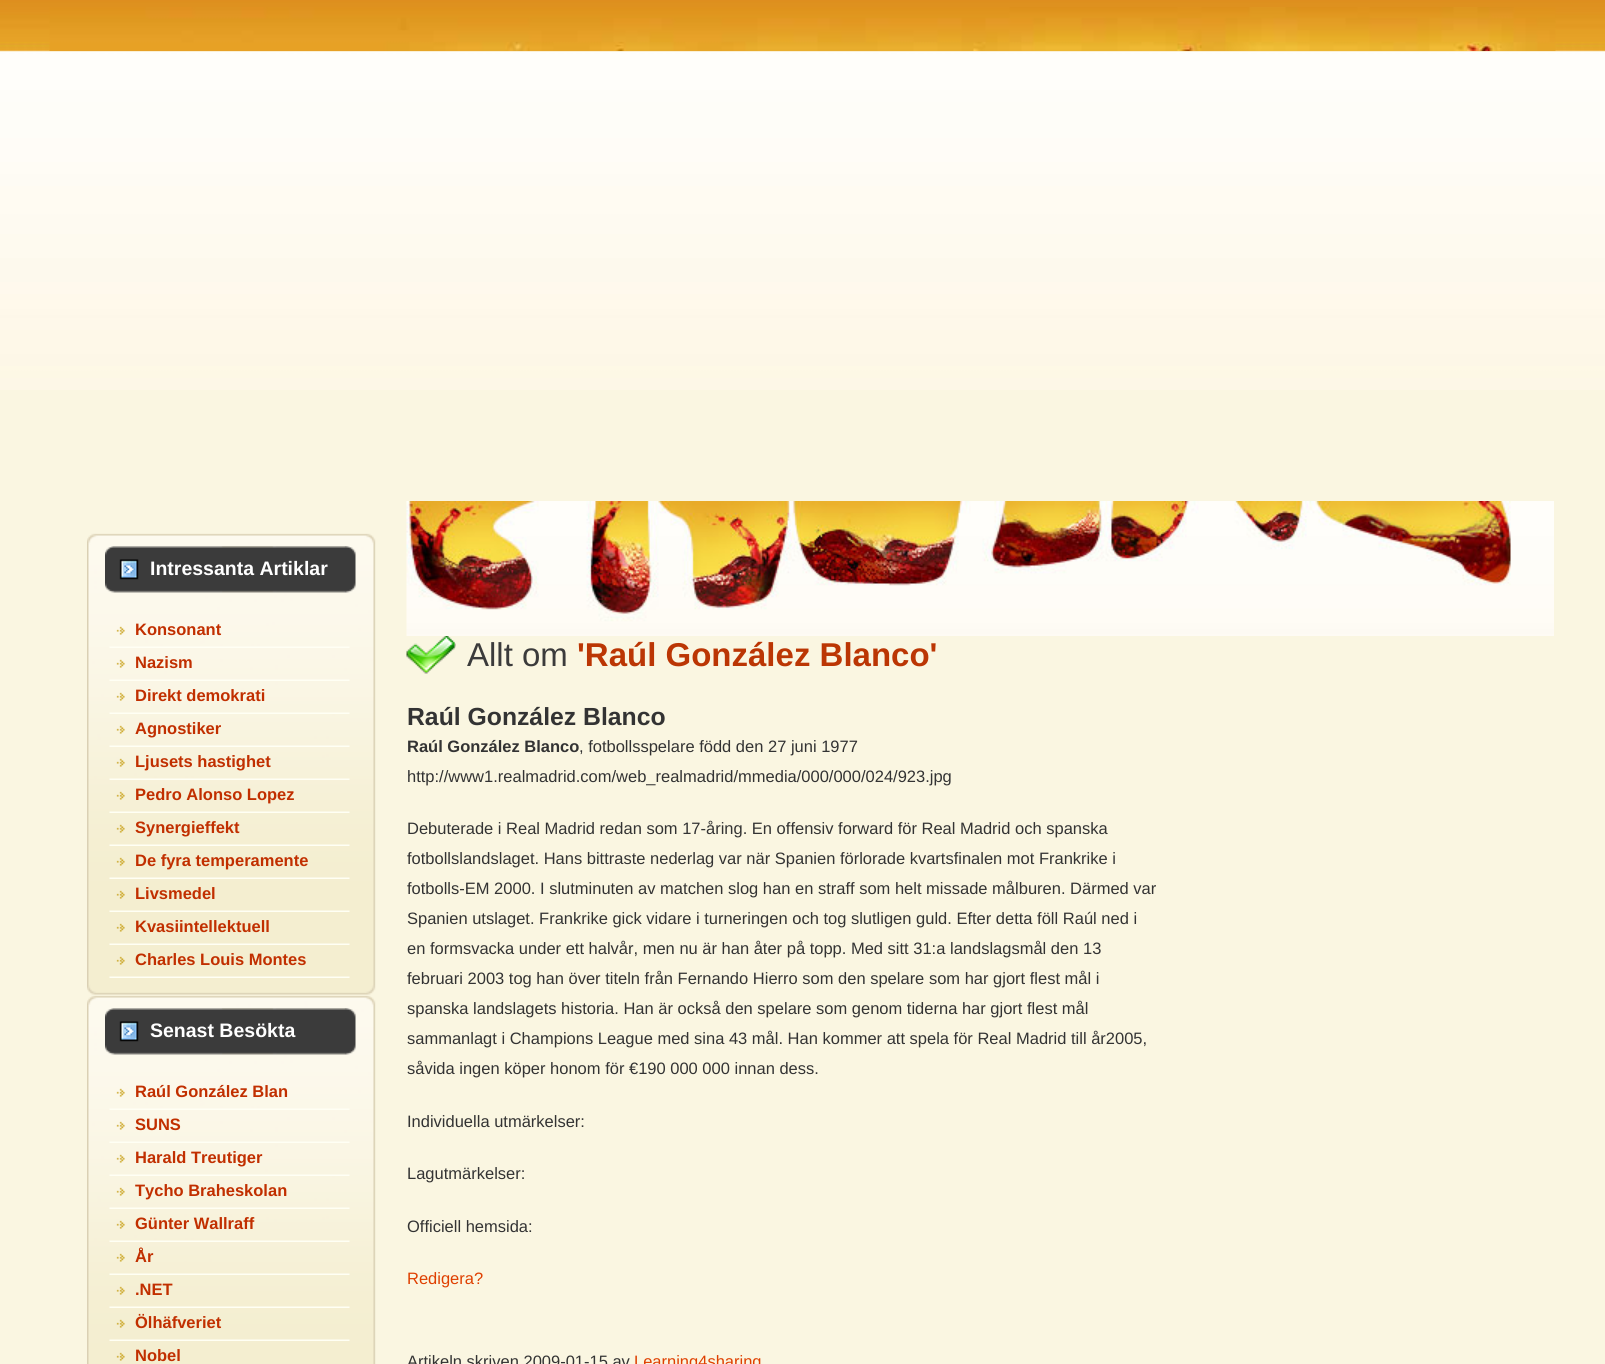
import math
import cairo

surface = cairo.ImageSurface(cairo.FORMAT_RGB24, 1605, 1364)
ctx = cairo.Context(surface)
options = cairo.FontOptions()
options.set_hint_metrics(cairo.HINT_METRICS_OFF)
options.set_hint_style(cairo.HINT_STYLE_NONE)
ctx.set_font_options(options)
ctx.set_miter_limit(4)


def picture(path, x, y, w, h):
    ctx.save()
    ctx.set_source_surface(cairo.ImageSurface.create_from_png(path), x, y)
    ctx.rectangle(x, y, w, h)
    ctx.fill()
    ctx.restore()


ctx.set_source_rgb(0.98, 0.961, 0.882)
ctx.paint()
picture("img1.png", 0, 0, 1605, 390)
picture("img2.png", 49, 7, 1507, 44)
picture("img3.png", 87, 533, 289, 13)
picture("img4.png", 87, 546, 289, 432)
picture("img5.png", 105, 546, 251, 47)
ctx.select_font_face("Liberation Sans", cairo.FONT_SLANT_NORMAL, cairo.FONT_WEIGHT_BOLD)
ctx.set_font_size(19.5)
ctx.set_source_rgb(1, 1, 1)
ctx.move_to(150, 575)
ctx.show_text("Intressanta Artiklar")
picture("img6.png", 109, 626, 241, 22)
ctx.set_font_size(16.5)
ctx.set_source_rgb(0.757, 0.184, 0)
ctx.move_to(135, 635)
ctx.show_text("Konsonant")
picture("img7.png", 109, 659, 241, 22)
ctx.move_to(135, 668)
ctx.show_text("Nazism")
picture("img8.png", 109, 692, 241, 22)
ctx.move_to(135, 701)
ctx.show_text("Direkt demokrati")
picture("img9.png", 109, 725, 241, 22)
ctx.move_to(135, 734)
ctx.show_text("Agnostiker")
picture("img10.png", 109, 758, 241, 22)
ctx.move_to(135, 767)
ctx.show_text("Ljusets hastighet")
picture("img11.png", 109, 791, 241, 22)
ctx.move_to(135, 800)
ctx.show_text("Pedro Alonso Lopez")
picture("img12.png", 109, 824, 241, 22)
ctx.move_to(135, 833)
ctx.show_text("Synergieffekt")
picture("img13.png", 109, 857, 241, 22)
ctx.move_to(135, 866)
ctx.show_text("De fyra temperamente")
picture("img14.png", 109, 890, 241, 22)
ctx.move_to(135, 899)
ctx.show_text("Livsmedel")
picture("img14.png", 109, 923, 241, 22)
ctx.move_to(135, 932)
ctx.show_text("Kvasiintellektuell")
picture("img14.png", 109, 956, 241, 22)
ctx.move_to(135, 965)
ctx.show_text("Charles Louis Montes")
picture("img15.png", 87, 978, 289, 17)
picture("img3.png", 87, 995, 289, 13)
picture("img16.png", 87, 1008, 289, 356)
picture("img5.png", 105, 1008, 251, 47)
ctx.set_font_size(19.5)
ctx.set_source_rgb(1, 1, 1)
ctx.move_to(150, 1037)
ctx.show_text("Senast Besökta")
picture("img6.png", 109, 1088, 241, 22)
ctx.set_font_size(16.5)
ctx.set_source_rgb(0.757, 0.184, 0)
ctx.move_to(135, 1097)
ctx.show_text("Raúl González Blan")
picture("img7.png", 109, 1121, 241, 22)
ctx.move_to(135, 1130)
ctx.show_text("SUNS")
picture("img8.png", 109, 1154, 241, 22)
ctx.move_to(135, 1163)
ctx.show_text("Harald Treutiger")
picture("img9.png", 109, 1187, 241, 22)
ctx.move_to(135, 1196)
ctx.show_text("Tycho Braheskolan")
picture("img10.png", 109, 1220, 241, 22)
ctx.move_to(135, 1229)
ctx.show_text("Günter Wallraff")
picture("img11.png", 109, 1253, 241, 22)
ctx.move_to(135, 1262)
ctx.show_text("År")
picture("img12.png", 109, 1286, 241, 22)
ctx.move_to(135, 1295)
ctx.show_text(".NET")
picture("img13.png", 109, 1319, 241, 22)
ctx.move_to(135, 1328)
ctx.show_text("Ölhäfveriet")
picture("img17.png", 116, 1352, 9, 9)
ctx.move_to(135, 1361)
ctx.show_text("Nobel")
picture("img18.png", 406, 501, 1148, 135)
picture("img19.png", 406, 636, 50, 38)
ctx.select_font_face("Liberation Sans")
ctx.set_font_size(33)
ctx.set_source_rgb(0.231, 0.231, 0.231)
ctx.move_to(467, 666)
ctx.show_text("Allt om")
ctx.select_font_face("Liberation Sans", cairo.FONT_SLANT_NORMAL, cairo.FONT_WEIGHT_BOLD)
ctx.set_source_rgb(0.733, 0.212, 0.016)
ctx.move_to(577, 666)
ctx.show_text("'Raúl González Blanco'")
ctx.set_font_size(24.75)
ctx.set_source_rgb(0.2, 0.2, 0.2)
ctx.move_to(407, 725)
ctx.show_text("Raúl González Blanco")
ctx.set_font_size(16.5)
ctx.move_to(407, 752)
ctx.show_text("Raúl González Blanco")
ctx.select_font_face("Liberation Sans")
ctx.move_to(579, 752)
ctx.show_text(", fotbollsspelare född den 27 juni 1977")
ctx.move_to(407, 782)
ctx.show_text("http://www1.realmadrid.com/web_realmadrid/mmedia/000/000/024/923.jpg")
ctx.move_to(407, 834)
ctx.show_text("Debuterade i Real Madrid redan som 17-åring. En offensiv forward för Real Madrid och spanska")
ctx.move_to(407, 864)
ctx.show_text("fotbollslandslaget. Hans bittraste nederlag var när Spanien förlorade kvartsfinalen mot Frankrike i")
ctx.move_to(407, 894)
ctx.show_text("fotbolls-EM 2000. I slutminuten av matchen slog han en straff som helt missade målburen. Därmed var")
ctx.move_to(407, 924)
ctx.show_text("Spanien utslaget. Frankrike gick vidare i turneringen och tog slutligen guld. Efter detta föll Raúl ned i")
ctx.move_to(407, 954)
ctx.show_text("en formsvacka under ett halvår, men nu är han åter på topp. Med sitt 31:a landslagsmål den 13")
ctx.move_to(407, 984)
ctx.show_text("februari 2003 tog han över titeln från Fernando Hierro som den spelare som har gjort flest mål i")
ctx.move_to(407, 1014)
ctx.show_text("spanska landslagets historia. Han är också den spelare som genom tiderna har gjort flest mål")
ctx.move_to(407, 1044)
ctx.show_text("sammanlagt i Champions League med sina 43 mål. Han kommer att spela för Real Madrid till år2005,")
ctx.move_to(407, 1074)
ctx.show_text("såvida ingen köper honom för €190 000 000 innan dess.")
ctx.move_to(407, 1127)
ctx.show_text("Individuella utmärkelser:")
ctx.move_to(407, 1179)
ctx.show_text("Lagutmärkelser:")
ctx.move_to(407, 1232)
ctx.show_text("Officiell hemsida:")
ctx.set_source_rgb(0.875, 0.247, 0)
ctx.move_to(407, 1284)
ctx.show_text("Redigera?")
ctx.set_source_rgb(0.2, 0.2, 0.2)
ctx.move_to(407, 1367)
ctx.show_text("Artikeln skriven 2009-01-15 av")
ctx.set_source_rgb(0.875, 0.247, 0)
ctx.move_to(634, 1367)
ctx.show_text("Learning4sharing")
surface.write_to_png("page.png")
